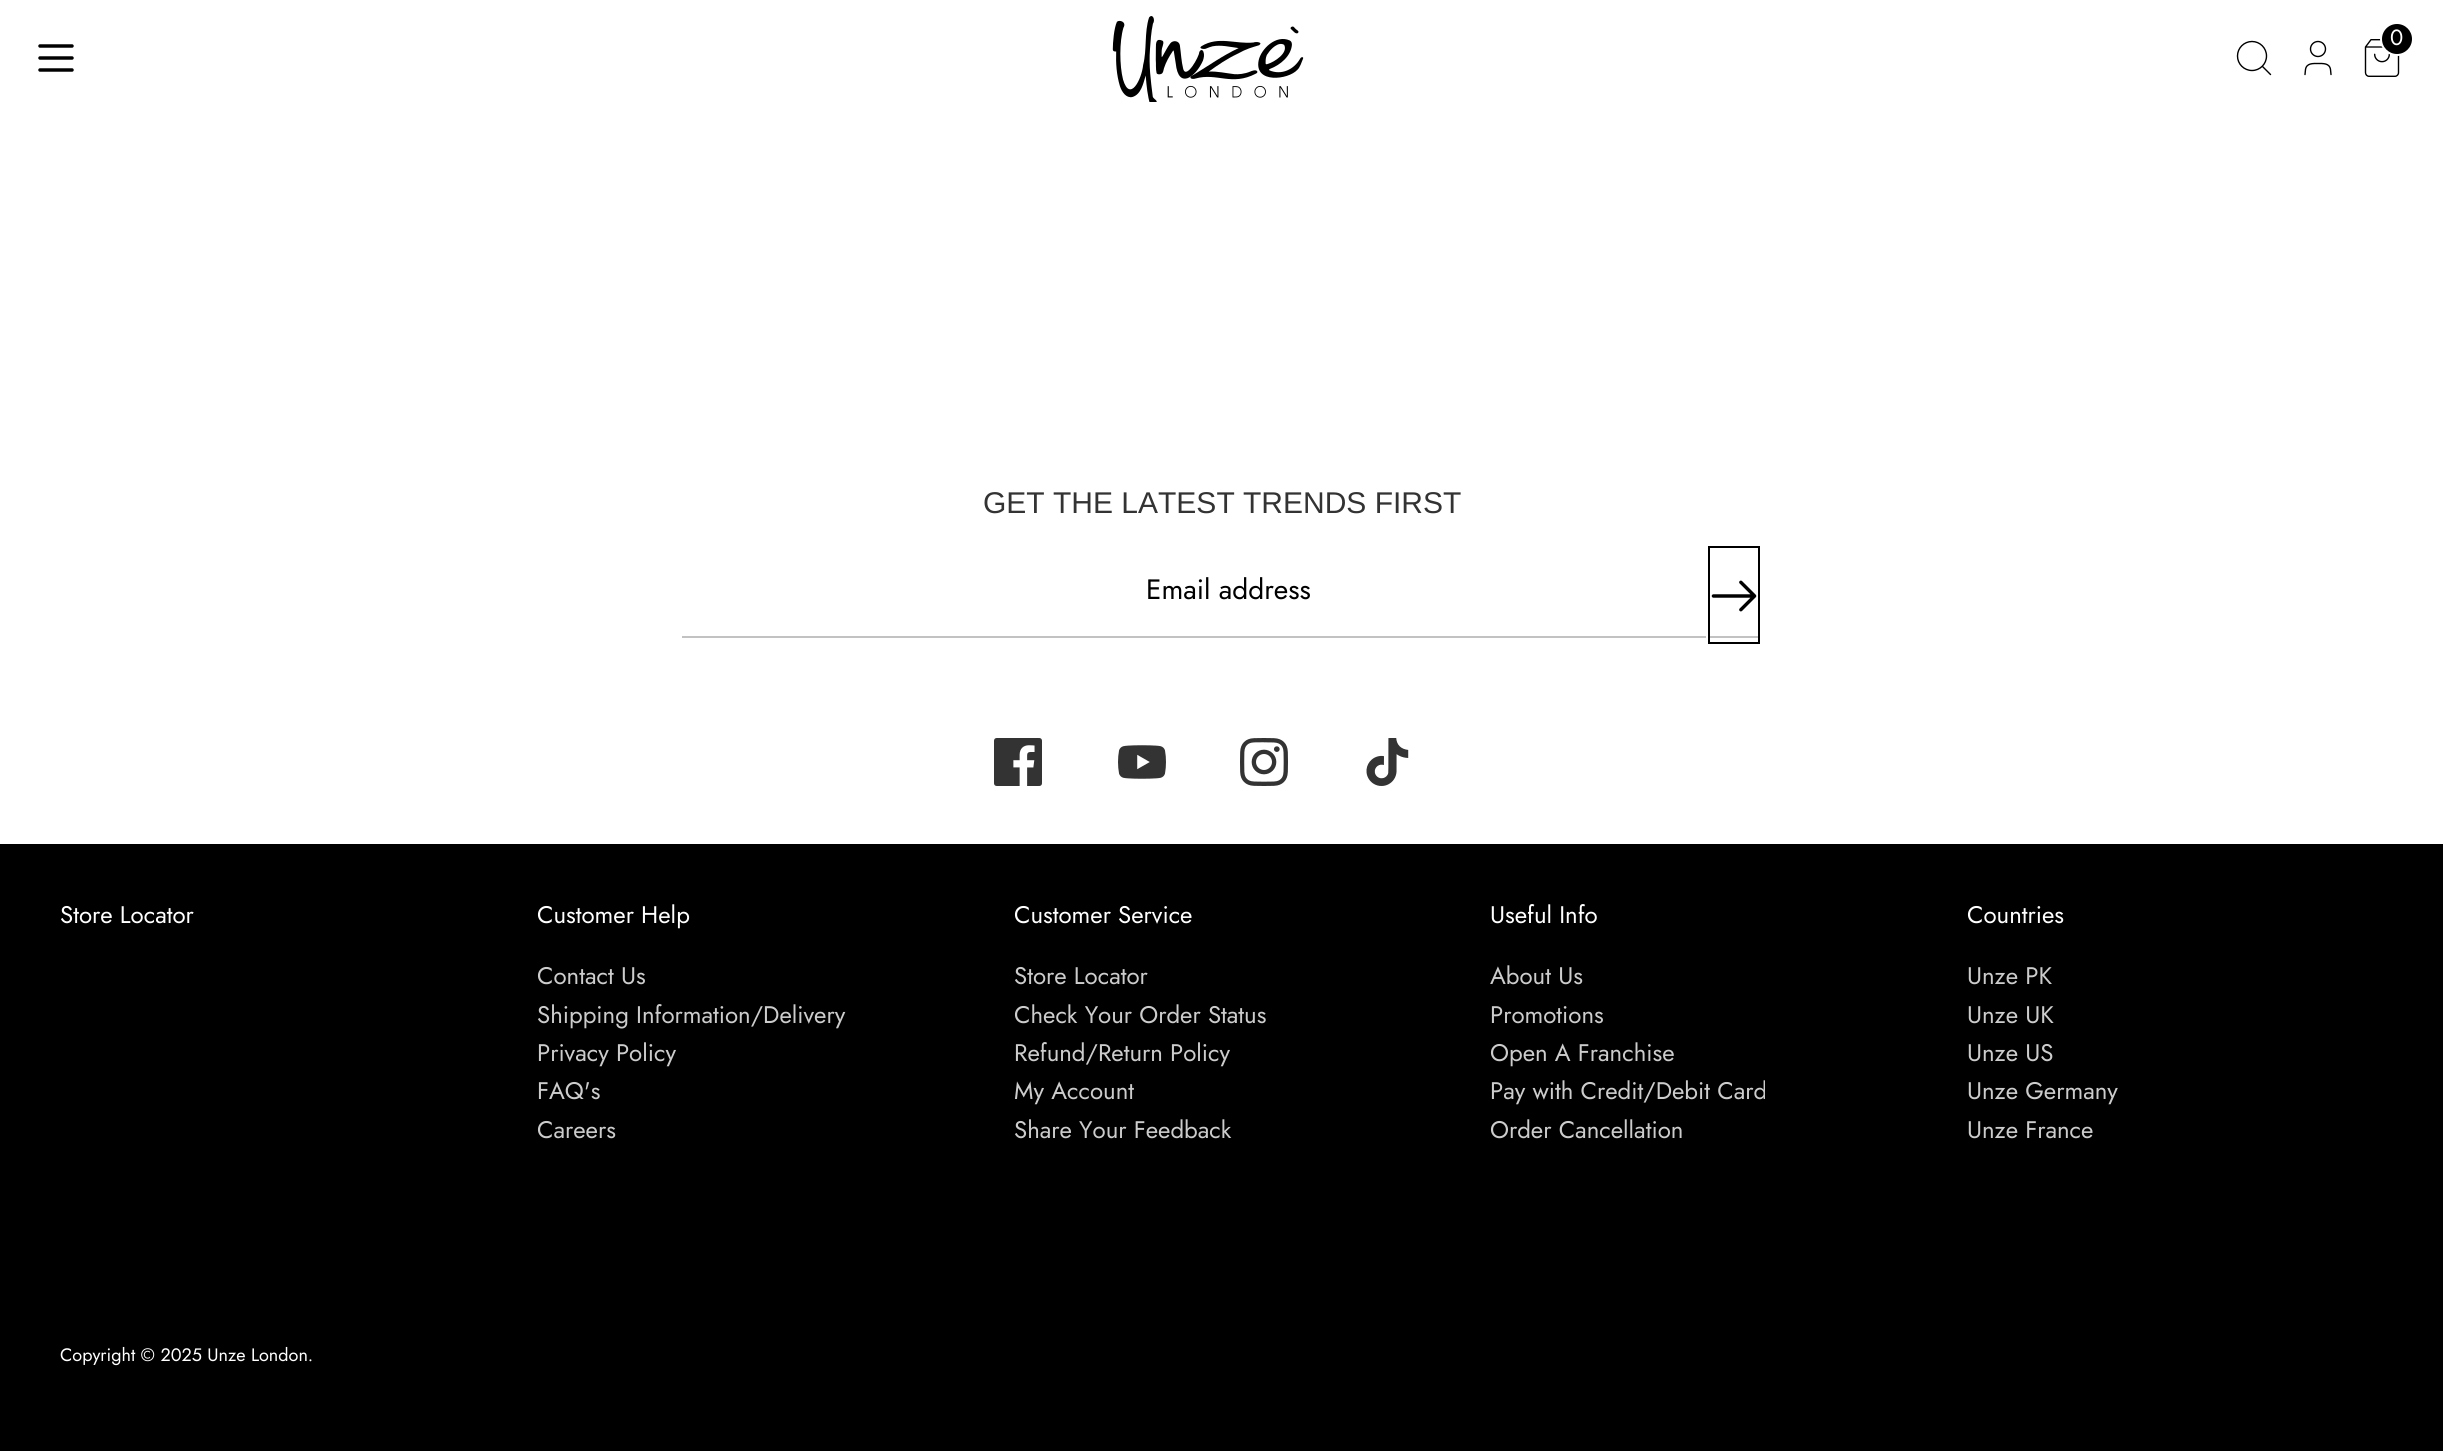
import math
import cairo

surface = cairo.ImageSurface(cairo.FORMAT_RGB24, 2443, 1451)
ctx = cairo.Context(surface)
options = cairo.FontOptions()
options.set_hint_metrics(cairo.HINT_METRICS_OFF)
options.set_hint_style(cairo.HINT_STYLE_NONE)
ctx.set_font_options(options)
ctx.set_miter_limit(4)


def picture(path, x, y, w, h):
    ctx.save()
    ctx.set_source_surface(cairo.ImageSurface.create_from_png(path), x, y)
    ctx.rectangle(x, y, w, h)
    ctx.fill()
    ctx.restore()


ctx.set_source_rgb(1, 1, 1)
ctx.paint()
picture("img1.png", 1112, 16, 192, 86)
picture("img2.png", 2364, 39, 36, 38)
ctx.set_source_rgb(0, 0, 0)
ctx.arc(2397, 39, 16, 0, 2 * math.pi)
ctx.fill_preserve()
ctx.set_source_rgb(1, 1, 1)
ctx.stroke()
ctx.select_font_face("Jost")
ctx.set_font_size(22)
ctx.move_to(2390, 45)
ctx.show_text("0")
ctx.new_path()
ctx.arc(2252, 56, 14.5, 0, 2 * math.pi)
ctx.set_source_rgb(0, 0, 0)
ctx.set_line_width(1.4)
ctx.stroke()
ctx.new_path()
ctx.move_to(2270.5, 74.5)
ctx.line_to(2262.5, 66.5)
ctx.set_line_cap(cairo.LINE_CAP_ROUND)
ctx.set_line_join(cairo.LINE_JOIN_ROUND)
ctx.stroke()
ctx.new_path()
ctx.move_to(2331, 74.5)
ctx.line_to(2330.5, 69.5)
ctx.curve_to(2329.5, 63, 2323, 63.5, 2318, 63.5)
ctx.curve_to(2313, 63.5, 2306.5, 63, 2305.5, 69.5)
ctx.line_to(2305, 74.5)
ctx.stroke()
ctx.arc(2318, 49, 7.5, 0, 2 * math.pi)
ctx.set_line_cap(cairo.LINE_CAP_BUTT)
ctx.set_line_join(cairo.LINE_JOIN_MITER)
ctx.stroke()
ctx.new_path()
ctx.move_to(40, 58)
ctx.line_to(72, 58)
ctx.move_to(40, 46)
ctx.line_to(72, 46)
ctx.move_to(40, 70)
ctx.line_to(72, 70)
ctx.set_line_width(3.5)
ctx.set_line_cap(cairo.LINE_CAP_ROUND)
ctx.set_line_join(cairo.LINE_JOIN_ROUND)
ctx.stroke()
ctx.select_font_face("Liberation Sans")
ctx.set_font_size(30)
ctx.set_source_rgb(0.2, 0.2, 0.2)
ctx.move_to(983, 513)
ctx.show_text("GET THE LATEST TRENDS FIRST")
ctx.set_source_rgb(0.761, 0.761, 0.761)
ctx.rectangle(682, 636, 1080, 2)
ctx.fill()
ctx.select_font_face("Jost")
ctx.set_font_size(28)
ctx.set_source_rgb(0, 0, 0)
ctx.move_to(1146, 599)
ctx.show_text("Email address")
ctx.rectangle(1707, 545, 54, 100)
ctx.set_source_rgb(1, 1, 1)
ctx.set_line_width(2)
ctx.set_line_cap(cairo.LINE_CAP_BUTT)
ctx.set_line_join(cairo.LINE_JOIN_MITER)
ctx.stroke()
ctx.rectangle(1709, 547, 50, 96)
ctx.set_source_rgb(0, 0, 0)
ctx.stroke()
picture("img3.png", 1711, 580, 46, 32)
picture("img4.png", 994, 738, 48, 48)
picture("img5.png", 1118, 745, 48, 34)
picture("img6.png", 1240, 738, 48, 48)
picture("img7.png", 1366, 738, 43, 48)
ctx.rectangle(0, 844, 2443, 607)
ctx.fill()
ctx.set_font_size(24)
ctx.set_source_rgb(1, 1, 1)
ctx.move_to(60, 923)
ctx.show_text("Store Locator")
ctx.move_to(537, 923)
ctx.show_text("Customer Help")
ctx.set_source_rgb(0.8, 0.8, 0.8)
ctx.move_to(537, 984)
ctx.show_text("Contact Us")
ctx.move_to(537, 1023)
ctx.show_text("Shipping Information/Delivery")
ctx.move_to(537, 1061)
ctx.show_text("Privacy Policy")
ctx.move_to(537, 1099)
ctx.show_text("FAQ's")
ctx.move_to(537, 1138)
ctx.show_text("Careers")
ctx.set_source_rgb(1, 1, 1)
ctx.move_to(1014, 923)
ctx.show_text("Customer Service")
ctx.set_source_rgb(0.8, 0.8, 0.8)
ctx.move_to(1014, 984)
ctx.show_text("Store Locator")
ctx.move_to(1014, 1023)
ctx.show_text("Check Your Order Status")
ctx.move_to(1014, 1061)
ctx.show_text("Refund/Return Policy")
ctx.move_to(1014, 1099)
ctx.show_text("My Account")
ctx.move_to(1014, 1138)
ctx.show_text("Share Your Feedback")
ctx.set_source_rgb(1, 1, 1)
ctx.move_to(1490, 923)
ctx.show_text("Useful Info")
ctx.set_source_rgb(0.8, 0.8, 0.8)
ctx.move_to(1490, 984)
ctx.show_text("About Us")
ctx.move_to(1490, 1023)
ctx.show_text("Promotions")
ctx.move_to(1490, 1061)
ctx.show_text("Open A Franchise")
ctx.move_to(1490, 1099)
ctx.show_text("Pay with Credit/Debit Card")
ctx.move_to(1490, 1138)
ctx.show_text("Order Cancellation")
ctx.set_source_rgb(1, 1, 1)
ctx.move_to(1967, 923)
ctx.show_text("Countries")
ctx.set_source_rgb(0.8, 0.8, 0.8)
ctx.move_to(1967, 984)
ctx.show_text("Unze PK")
ctx.move_to(1967, 1023)
ctx.show_text("Unze UK")
ctx.move_to(1967, 1061)
ctx.show_text("Unze US")
ctx.move_to(1967, 1099)
ctx.show_text("Unze Germany")
ctx.move_to(1967, 1138)
ctx.show_text("Unze France")
ctx.set_font_size(18)
ctx.set_source_rgb(1, 1, 1)
ctx.move_to(60, 1361)
ctx.show_text("Copyright © 2025 Unze London.")
surface.write_to_png("page.png")
